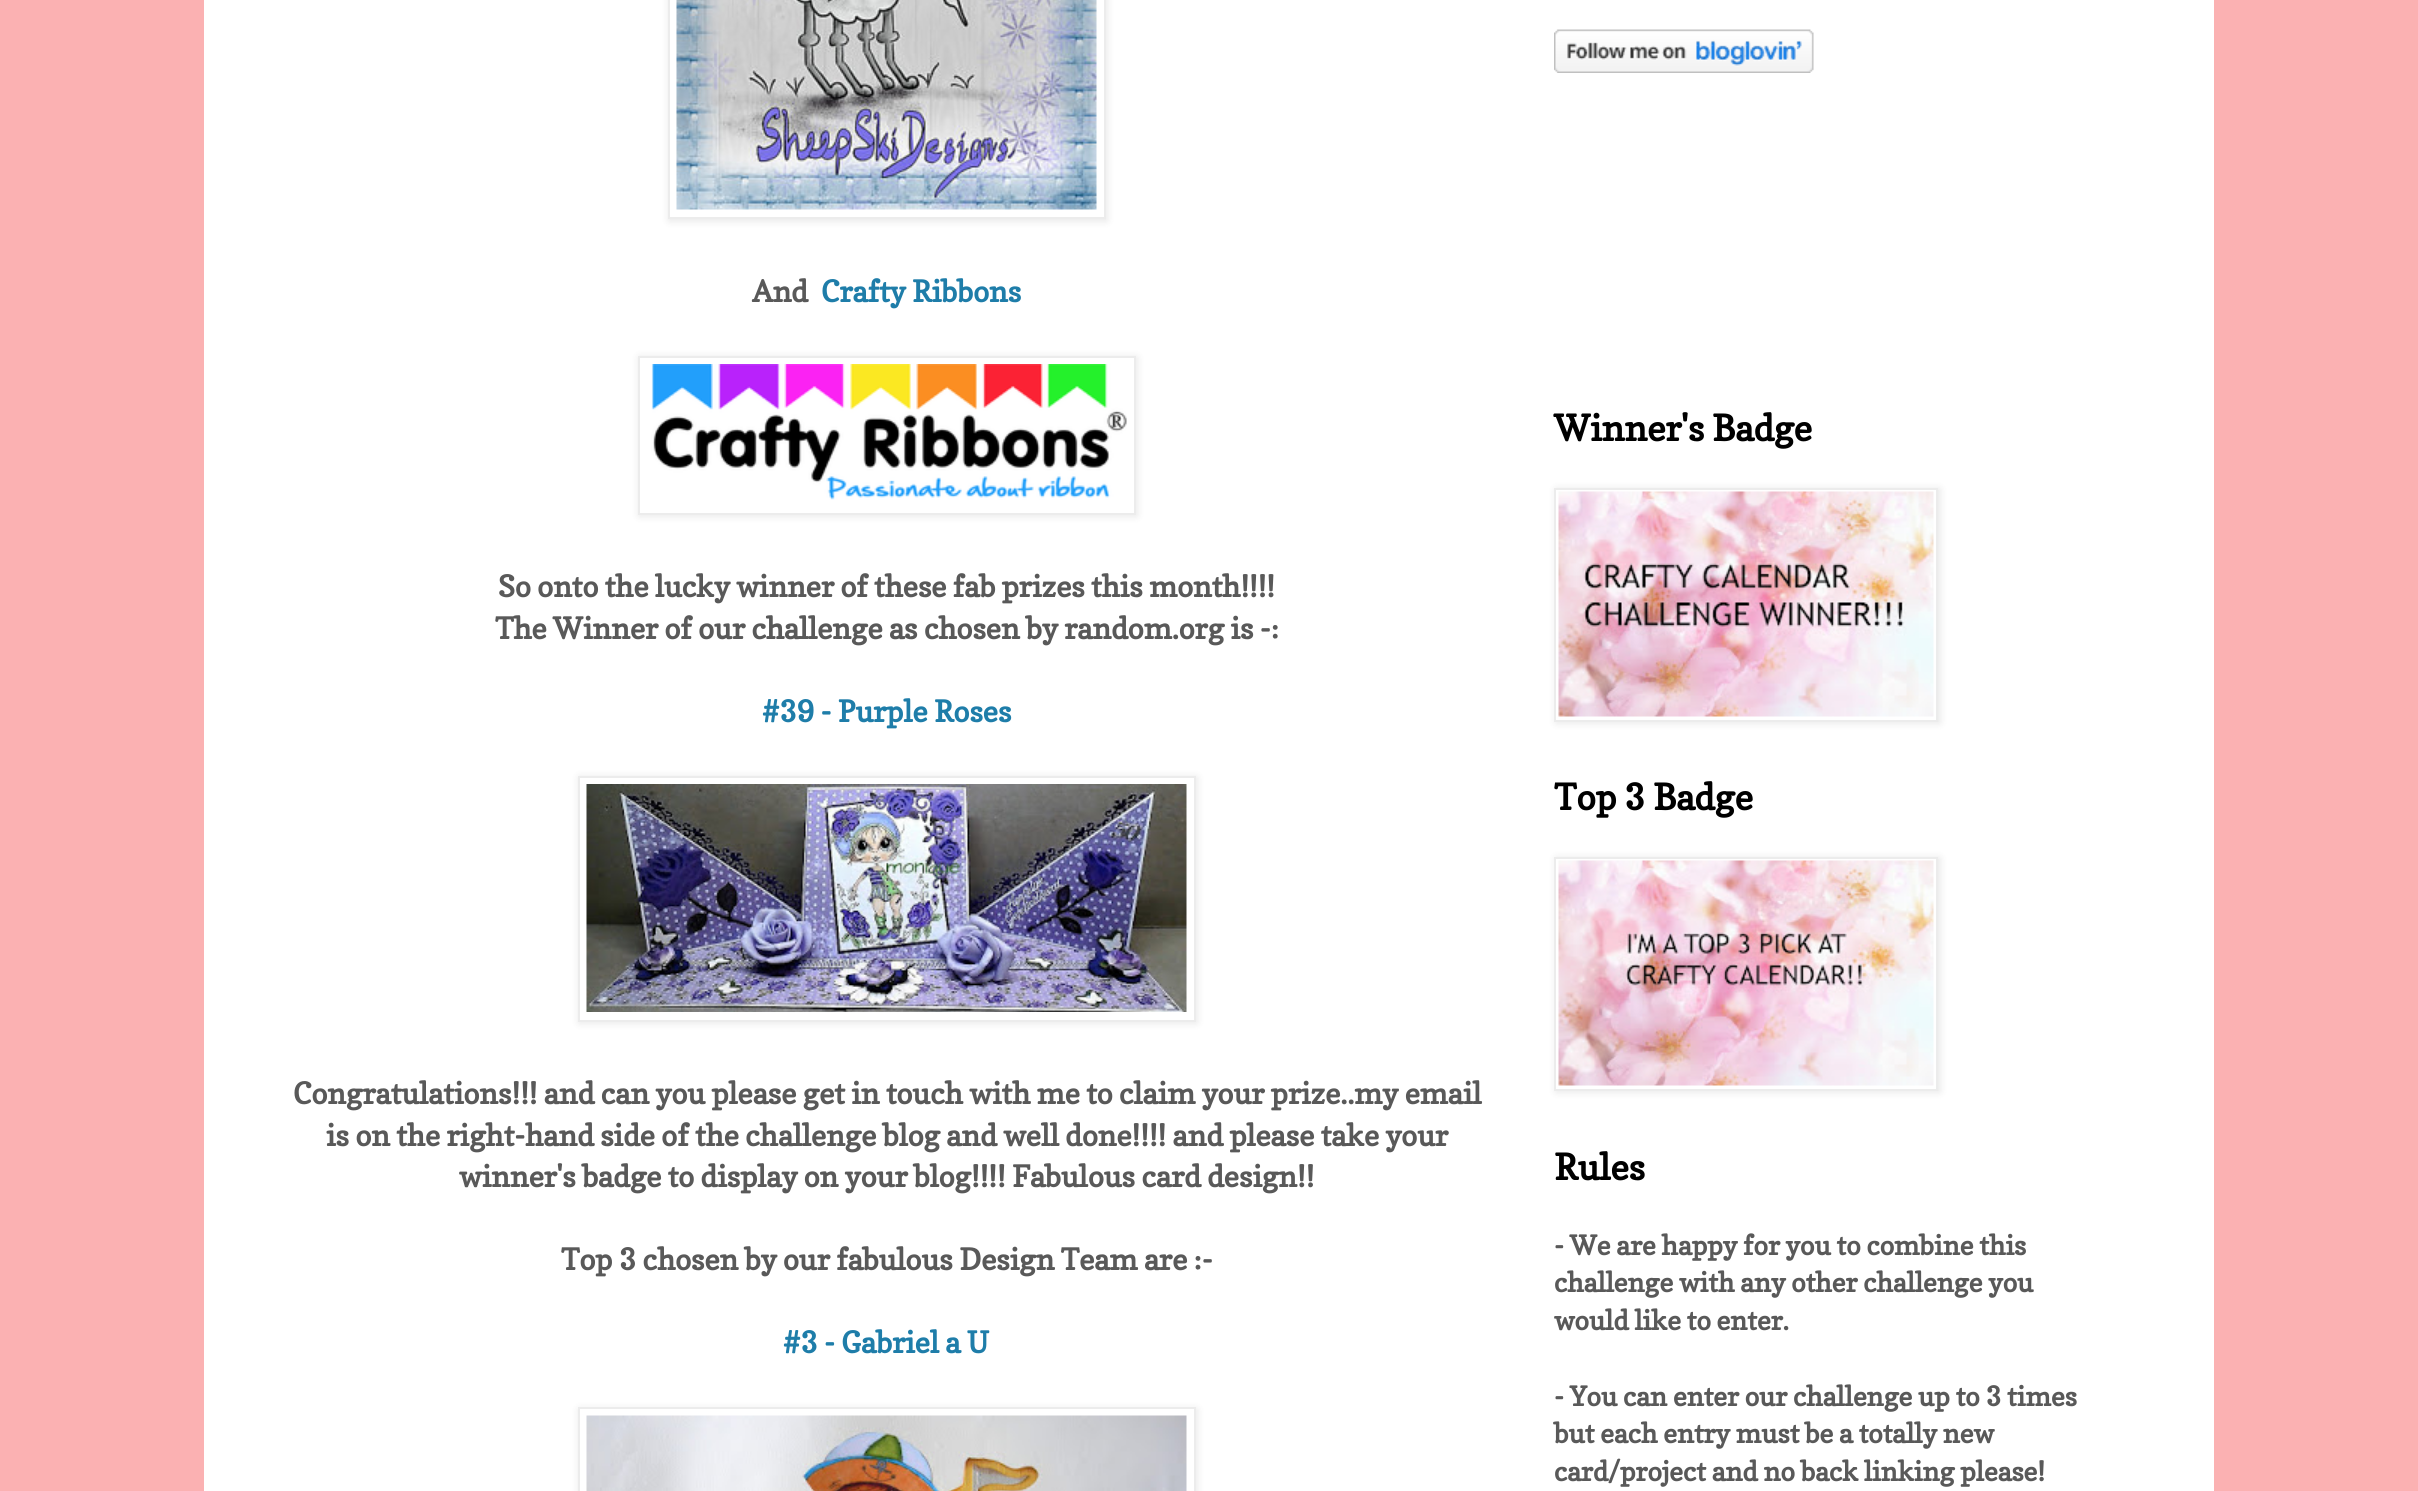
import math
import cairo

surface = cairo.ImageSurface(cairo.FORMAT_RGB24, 2418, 1491)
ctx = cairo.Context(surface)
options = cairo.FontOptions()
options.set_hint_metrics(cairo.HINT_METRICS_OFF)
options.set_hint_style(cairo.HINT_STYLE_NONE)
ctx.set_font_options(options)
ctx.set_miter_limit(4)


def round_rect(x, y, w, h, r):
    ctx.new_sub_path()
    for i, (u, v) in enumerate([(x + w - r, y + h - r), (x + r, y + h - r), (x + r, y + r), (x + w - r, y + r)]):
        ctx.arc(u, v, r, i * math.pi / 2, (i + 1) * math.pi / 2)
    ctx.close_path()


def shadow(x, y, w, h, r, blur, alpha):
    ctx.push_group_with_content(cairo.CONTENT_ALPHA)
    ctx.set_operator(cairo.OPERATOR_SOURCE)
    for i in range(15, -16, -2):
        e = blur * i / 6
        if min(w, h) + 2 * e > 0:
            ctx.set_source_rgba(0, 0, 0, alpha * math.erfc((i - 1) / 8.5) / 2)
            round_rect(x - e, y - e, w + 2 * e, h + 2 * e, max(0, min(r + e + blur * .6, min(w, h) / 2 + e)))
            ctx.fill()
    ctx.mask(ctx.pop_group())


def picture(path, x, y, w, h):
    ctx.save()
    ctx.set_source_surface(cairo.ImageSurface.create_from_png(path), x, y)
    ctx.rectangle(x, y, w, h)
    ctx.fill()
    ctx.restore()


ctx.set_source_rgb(0.984, 0.694, 0.698)
ctx.paint()
ctx.set_source_rgb(1, 1, 1)
ctx.rectangle(204, 0, 2010, 1491)
ctx.fill()
ctx.set_source_rgb(0, 0, 0)
shadow(669, -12, 438, 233, 0, 4, 0.1)
ctx.set_source_rgb(1, 1, 1)
ctx.rectangle(669, -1, 436, 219)
ctx.fill_preserve()
ctx.set_source_rgb(0.922, 0.922, 0.922)
ctx.stroke()
picture("img1.png", 676, 0, 421, 210)
ctx.select_font_face("Copse", cairo.FONT_SLANT_NORMAL, cairo.FONT_WEIGHT_BOLD)
ctx.set_font_size(29.7)
ctx.set_source_rgb(0.349, 0.349, 0.349)
ctx.move_to(752, 302)
ctx.show_text("And")
ctx.set_source_rgb(0.118, 0.49, 0.663)
ctx.move_to(821, 302)
ctx.show_text("Crafty Ribbons")
ctx.set_source_rgb(0, 0, 0)
shadow(639, 357, 498, 159, 0, 4, 0.1)
ctx.set_source_rgb(1, 1, 1)
ctx.rectangle(639, 357, 496, 157)
ctx.fill_preserve()
ctx.set_source_rgb(0.922, 0.922, 0.922)
ctx.stroke()
picture("img2.png", 651, 364, 476, 136)
ctx.set_source_rgb(0.349, 0.349, 0.349)
ctx.move_to(498, 597)
ctx.show_text("So onto the lucky winner of these fab prizes this month!!!!")
ctx.move_to(495, 639)
ctx.show_text("The Winner of our challenge as chosen by random.org is -:")
ctx.set_source_rgb(0.118, 0.49, 0.663)
ctx.move_to(762, 722)
ctx.show_text("#39 - Purple Roses")
ctx.set_source_rgb(0, 0, 0)
shadow(579, 777, 618, 246, 0, 4, 0.1)
ctx.set_source_rgb(1, 1, 1)
ctx.rectangle(579, 777, 616, 244)
ctx.fill_preserve()
ctx.set_source_rgb(0.922, 0.922, 0.922)
ctx.stroke()
picture("img3.png", 586, 784, 601, 228)
ctx.set_source_rgb(0.349, 0.349, 0.349)
ctx.move_to(293, 1104)
ctx.show_text("Congratulations!!! and can you please get in touch with me to claim your prize..my email")
ctx.move_to(326, 1146)
ctx.show_text("is on the right-hand side of the challenge blog and well done!!!! and please take your")
ctx.move_to(459, 1187)
ctx.show_text("winner's badge to display on your blog!!!! Fabulous card design!!")
ctx.move_to(561, 1270)
ctx.show_text("Top 3 chosen by our fabulous Design Team are :-")
ctx.set_source_rgb(0.118, 0.49, 0.663)
ctx.move_to(783, 1353)
ctx.show_text("#3 - Gabriel a U")
ctx.set_source_rgb(0, 0, 0)
shadow(579, 1409, 618, 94, 0, 4, 0.1)
ctx.set_source_rgb(1, 1, 1)
ctx.rectangle(579, 1408, 616, 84)
ctx.fill_preserve()
ctx.set_source_rgb(0.922, 0.922, 0.922)
ctx.stroke()
picture("img4.png", 586, 1415, 601, 76)
picture("img5.png", 1554, 29, 260, 44)
ctx.set_font_size(36)
ctx.set_source_rgb(0, 0, 0)
ctx.move_to(1554, 441)
ctx.show_text("Winner's Badge")
ctx.set_source_rgb(0, 0, 0)
shadow(1556, 489, 384, 234, 0, 4, 0.1)
ctx.set_source_rgb(1, 1, 1)
ctx.rectangle(1555, 489, 382, 232)
ctx.fill_preserve()
ctx.set_source_rgb(0.922, 0.922, 0.922)
ctx.stroke()
picture("img6.png", 1558, 491, 376, 226)
ctx.set_source_rgb(0, 0, 0)
ctx.move_to(1554, 810)
ctx.show_text("Top 3 Badge")
ctx.set_source_rgb(0, 0, 0)
shadow(1556, 858, 384, 234, 0, 4, 0.1)
ctx.set_source_rgb(1, 1, 1)
ctx.rectangle(1555, 858, 382, 232)
ctx.fill_preserve()
ctx.set_source_rgb(0.922, 0.922, 0.922)
ctx.stroke()
picture("img7.png", 1558, 860, 376, 226)
ctx.set_source_rgb(0, 0, 0)
ctx.move_to(1554, 1180)
ctx.show_text("Rules")
ctx.set_font_size(27)
ctx.set_source_rgb(0.349, 0.349, 0.349)
ctx.move_to(1554, 1255)
ctx.show_text("- We are happy for you to combine this")
ctx.move_to(1554, 1292)
ctx.show_text("challenge with any other challenge you")
ctx.move_to(1554, 1330)
ctx.show_text("would like to enter.")
ctx.move_to(1554, 1406)
ctx.show_text("- You can enter our challenge up to 3 times")
ctx.move_to(1554, 1443)
ctx.show_text("but each entry must be a totally new")
ctx.move_to(1554, 1481)
ctx.show_text("card/project and no back linking please!")
surface.write_to_png("page.png")
